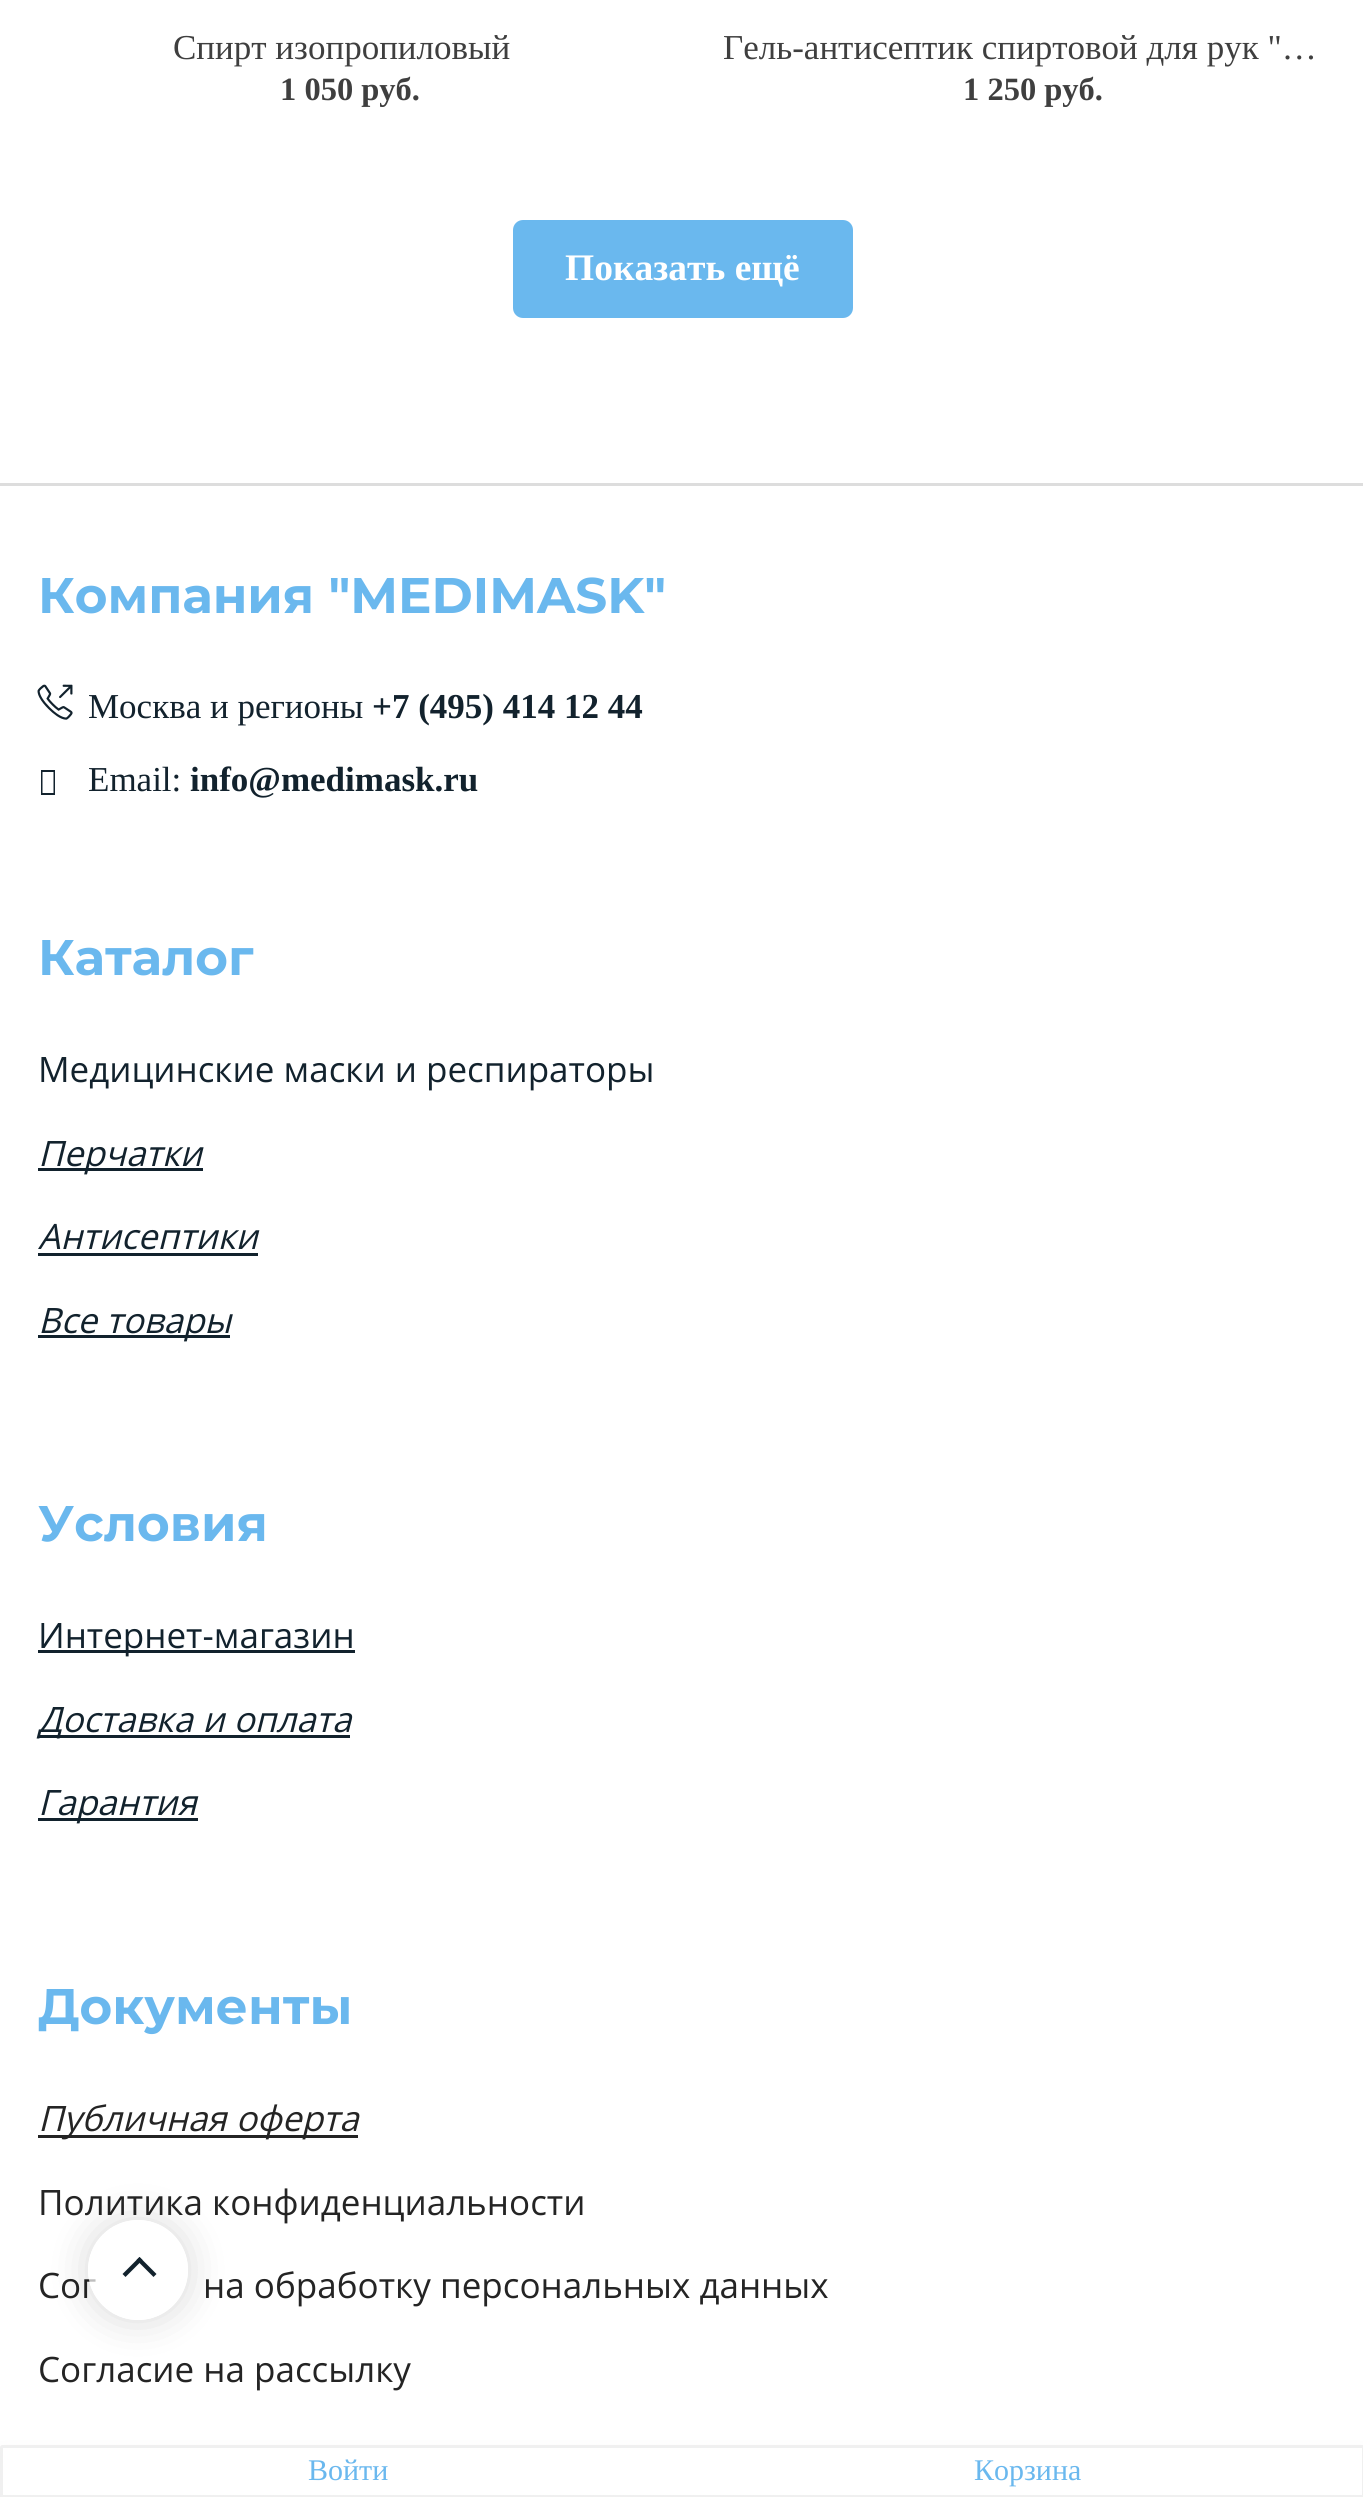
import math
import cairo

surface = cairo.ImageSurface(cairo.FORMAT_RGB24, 1363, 2497)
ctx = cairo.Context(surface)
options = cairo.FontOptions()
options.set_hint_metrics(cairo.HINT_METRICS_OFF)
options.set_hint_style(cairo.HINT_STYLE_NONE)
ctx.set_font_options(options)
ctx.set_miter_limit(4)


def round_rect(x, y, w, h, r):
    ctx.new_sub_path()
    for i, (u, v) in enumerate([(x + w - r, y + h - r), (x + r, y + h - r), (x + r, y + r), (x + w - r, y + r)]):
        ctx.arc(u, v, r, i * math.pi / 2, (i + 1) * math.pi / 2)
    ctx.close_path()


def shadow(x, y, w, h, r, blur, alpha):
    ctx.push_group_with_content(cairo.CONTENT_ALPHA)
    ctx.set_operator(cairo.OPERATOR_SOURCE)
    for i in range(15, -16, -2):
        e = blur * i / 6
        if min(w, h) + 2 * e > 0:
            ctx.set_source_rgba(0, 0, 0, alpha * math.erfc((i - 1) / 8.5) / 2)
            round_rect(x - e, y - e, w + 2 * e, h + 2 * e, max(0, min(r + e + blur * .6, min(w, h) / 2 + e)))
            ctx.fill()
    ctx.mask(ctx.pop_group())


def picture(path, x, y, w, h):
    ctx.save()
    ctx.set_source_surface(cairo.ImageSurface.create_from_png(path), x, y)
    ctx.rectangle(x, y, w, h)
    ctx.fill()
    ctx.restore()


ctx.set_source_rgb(1, 1, 1)
ctx.paint()
ctx.select_font_face("Liberation Serif")
ctx.set_font_size(35)
ctx.set_source_rgb(0.247, 0.247, 0.247)
ctx.move_to(173, 59)
ctx.show_text("Спирт изопропиловый")
ctx.select_font_face("Liberation Serif", cairo.FONT_SLANT_NORMAL, cairo.FONT_WEIGHT_BOLD)
ctx.set_font_size(32.5)
ctx.move_to(280, 100)
ctx.show_text("1 050 руб.")
ctx.select_font_face("Liberation Serif")
ctx.set_font_size(35)
ctx.move_to(723, 59)
ctx.show_text("Гель-антисептик спиртовой для рук \"…")
ctx.select_font_face("Liberation Serif", cairo.FONT_SLANT_NORMAL, cairo.FONT_WEIGHT_BOLD)
ctx.set_font_size(32.5)
ctx.move_to(963, 100)
ctx.show_text("1 250 руб.")
ctx.set_source_rgb(0.416, 0.722, 0.933)
round_rect(514.5, 221.5, 337, 95, 8.5)
ctx.fill_preserve()
ctx.set_line_width(3)
ctx.stroke()
ctx.set_font_size(37.5)
ctx.set_source_rgb(1, 1, 1)
ctx.move_to(565, 280)
ctx.show_text("Показать ещё")
ctx.set_source_rgb(0.867, 0.867, 0.867)
ctx.rectangle(0, 483, 1363, 3)
ctx.fill()
ctx.set_source_rgb(0, 0, 0)
shadow(0, 2463, 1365, 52, 2.5, 12.5, 0.15)
ctx.set_source_rgb(1, 1, 1)
round_rect(1.5, 2446.5, 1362, 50, 1)
ctx.fill_preserve()
ctx.set_source_rgb(0.941, 0.941, 0.941)
ctx.stroke()
ctx.select_font_face("Liberation Serif")
ctx.set_font_size(30)
ctx.set_source_rgb(0.416, 0.722, 0.933)
ctx.move_to(308, 2480)
ctx.show_text("Войти")
ctx.move_to(974, 2480)
ctx.show_text("Корзина")
ctx.select_font_face("Montserrat", cairo.FONT_SLANT_NORMAL, cairo.FONT_WEIGHT_BOLD)
ctx.set_font_size(50)
ctx.move_to(38, 613)
ctx.show_text("Компания \"MEDIMASK\"")
picture("img1.png", 37, 684, 36, 36)
ctx.select_font_face("Liberation Serif")
ctx.set_font_size(35)
ctx.set_source_rgb(0.071, 0.133, 0.176)
ctx.move_to(88, 718)
ctx.show_text("Москва и регионы")
ctx.select_font_face("Liberation Serif", cairo.FONT_SLANT_NORMAL, cairo.FONT_WEIGHT_BOLD)
ctx.move_to(372, 718)
ctx.show_text("+7 (495) 414 12 44")
ctx.new_path()
ctx.move_to(41, 795)
ctx.line_to(41, 770)
ctx.line_to(55, 770)
ctx.line_to(55, 795)
ctx.close_path()
ctx.move_to(42.5, 793)
ctx.line_to(53.5, 793)
ctx.line_to(53.5, 772)
ctx.line_to(42.5, 772)
ctx.close_path()
ctx.fill()
ctx.select_font_face("Liberation Serif")
ctx.move_to(88, 791)
ctx.show_text("Email:")
ctx.select_font_face("Liberation Serif", cairo.FONT_SLANT_NORMAL, cairo.FONT_WEIGHT_BOLD)
ctx.move_to(190, 791)
ctx.show_text("info@medimask.ru")
ctx.select_font_face("Montserrat", cairo.FONT_SLANT_NORMAL, cairo.FONT_WEIGHT_BOLD)
ctx.set_font_size(50)
ctx.set_source_rgb(0.416, 0.722, 0.933)
ctx.move_to(38, 975)
ctx.show_text("Каталог")
ctx.select_font_face("Open Sans")
ctx.set_font_size(35)
ctx.set_source_rgb(0.071, 0.133, 0.176)
ctx.move_to(38, 1082)
ctx.show_text("Медицинские маски и респираторы")
ctx.rectangle(38, 1168, 165, 3)
ctx.fill()
ctx.select_font_face("Open Sans", cairo.FONT_SLANT_ITALIC)
ctx.move_to(38, 1166)
ctx.show_text("Перчатки")
ctx.move_to(38, 1249)
ctx.show_text("Антисептики")
ctx.rectangle(38, 1253, 220, 3)
ctx.fill()
ctx.rectangle(38, 1335, 192, 3)
ctx.fill()
ctx.move_to(38, 1333)
ctx.show_text("Все товары")
ctx.select_font_face("Montserrat", cairo.FONT_SLANT_NORMAL, cairo.FONT_WEIGHT_BOLD)
ctx.set_font_size(50)
ctx.set_source_rgb(0.416, 0.722, 0.933)
ctx.move_to(38, 1541)
ctx.show_text("Условия")
ctx.set_source_rgb(0.071, 0.133, 0.176)
ctx.rectangle(38, 1650, 317, 3)
ctx.fill()
ctx.select_font_face("Open Sans")
ctx.set_font_size(35)
ctx.move_to(38, 1648)
ctx.show_text("Интернет-магазин")
ctx.rectangle(38, 1735, 312, 3)
ctx.fill()
ctx.select_font_face("Open Sans", cairo.FONT_SLANT_ITALIC)
ctx.move_to(38, 1732)
ctx.show_text("Доставка и оплата")
ctx.rectangle(38, 1818, 160, 3)
ctx.fill()
ctx.move_to(38, 1815)
ctx.show_text("Гарантия")
ctx.select_font_face("Montserrat", cairo.FONT_SLANT_NORMAL, cairo.FONT_WEIGHT_BOLD)
ctx.set_font_size(50)
ctx.set_source_rgb(0.416, 0.722, 0.933)
ctx.move_to(38, 2024)
ctx.show_text("Документы")
ctx.set_source_rgb(0.141, 0.141, 0.141)
ctx.rectangle(38, 2135, 320, 3)
ctx.fill()
ctx.select_font_face("Open Sans", cairo.FONT_SLANT_ITALIC)
ctx.set_font_size(35)
ctx.move_to(38, 2131)
ctx.show_text("Публичная оферта")
ctx.select_font_face("Open Sans")
ctx.move_to(38, 2215)
ctx.show_text("Политика конфиденциальности")
ctx.move_to(38, 2298)
ctx.show_text("Сог")
ctx.move_to(203, 2298)
ctx.show_text("на обработку персональных данных")
ctx.move_to(38, 2382)
ctx.show_text("Согласие на рассылку")
ctx.save()
ctx.set_fill_rule(cairo.FILL_RULE_EVEN_ODD)
ctx.new_path()
ctx.move_to(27, 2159)
ctx.line_to(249, 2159)
ctx.line_to(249, 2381)
ctx.line_to(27, 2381)
ctx.close_path()
ctx.move_to(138, 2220)
ctx.curve_to(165.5, 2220, 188, 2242.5, 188, 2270)
ctx.curve_to(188, 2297.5, 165.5, 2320, 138, 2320)
ctx.curve_to(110.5, 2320, 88, 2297.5, 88, 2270)
ctx.curve_to(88, 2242.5, 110.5, 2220, 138, 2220)
ctx.close_path()
ctx.clip()
ctx.set_source_rgb(0, 0, 0)
shadow(88, 2220, 100, 100, 50, 20, 0.15)
ctx.restore()
ctx.set_source_rgba(1, 1, 1, 0.7)
ctx.arc(138, 2270, 50, 0, 2 * math.pi)
ctx.fill()
ctx.set_source_rgb(0.071, 0.133, 0.176)
ctx.new_path()
ctx.move_to(139.5, 2257)
ctx.line_to(156.5, 2274)
ctx.line_to(153.5, 2277)
ctx.line_to(136.5, 2260)
ctx.close_path()
ctx.fill()
ctx.new_path()
ctx.move_to(139.5, 2257)
ctx.line_to(142.5, 2260)
ctx.line_to(125.5, 2277)
ctx.line_to(122.5, 2274)
ctx.close_path()
ctx.fill()
surface.write_to_png("page.png")
